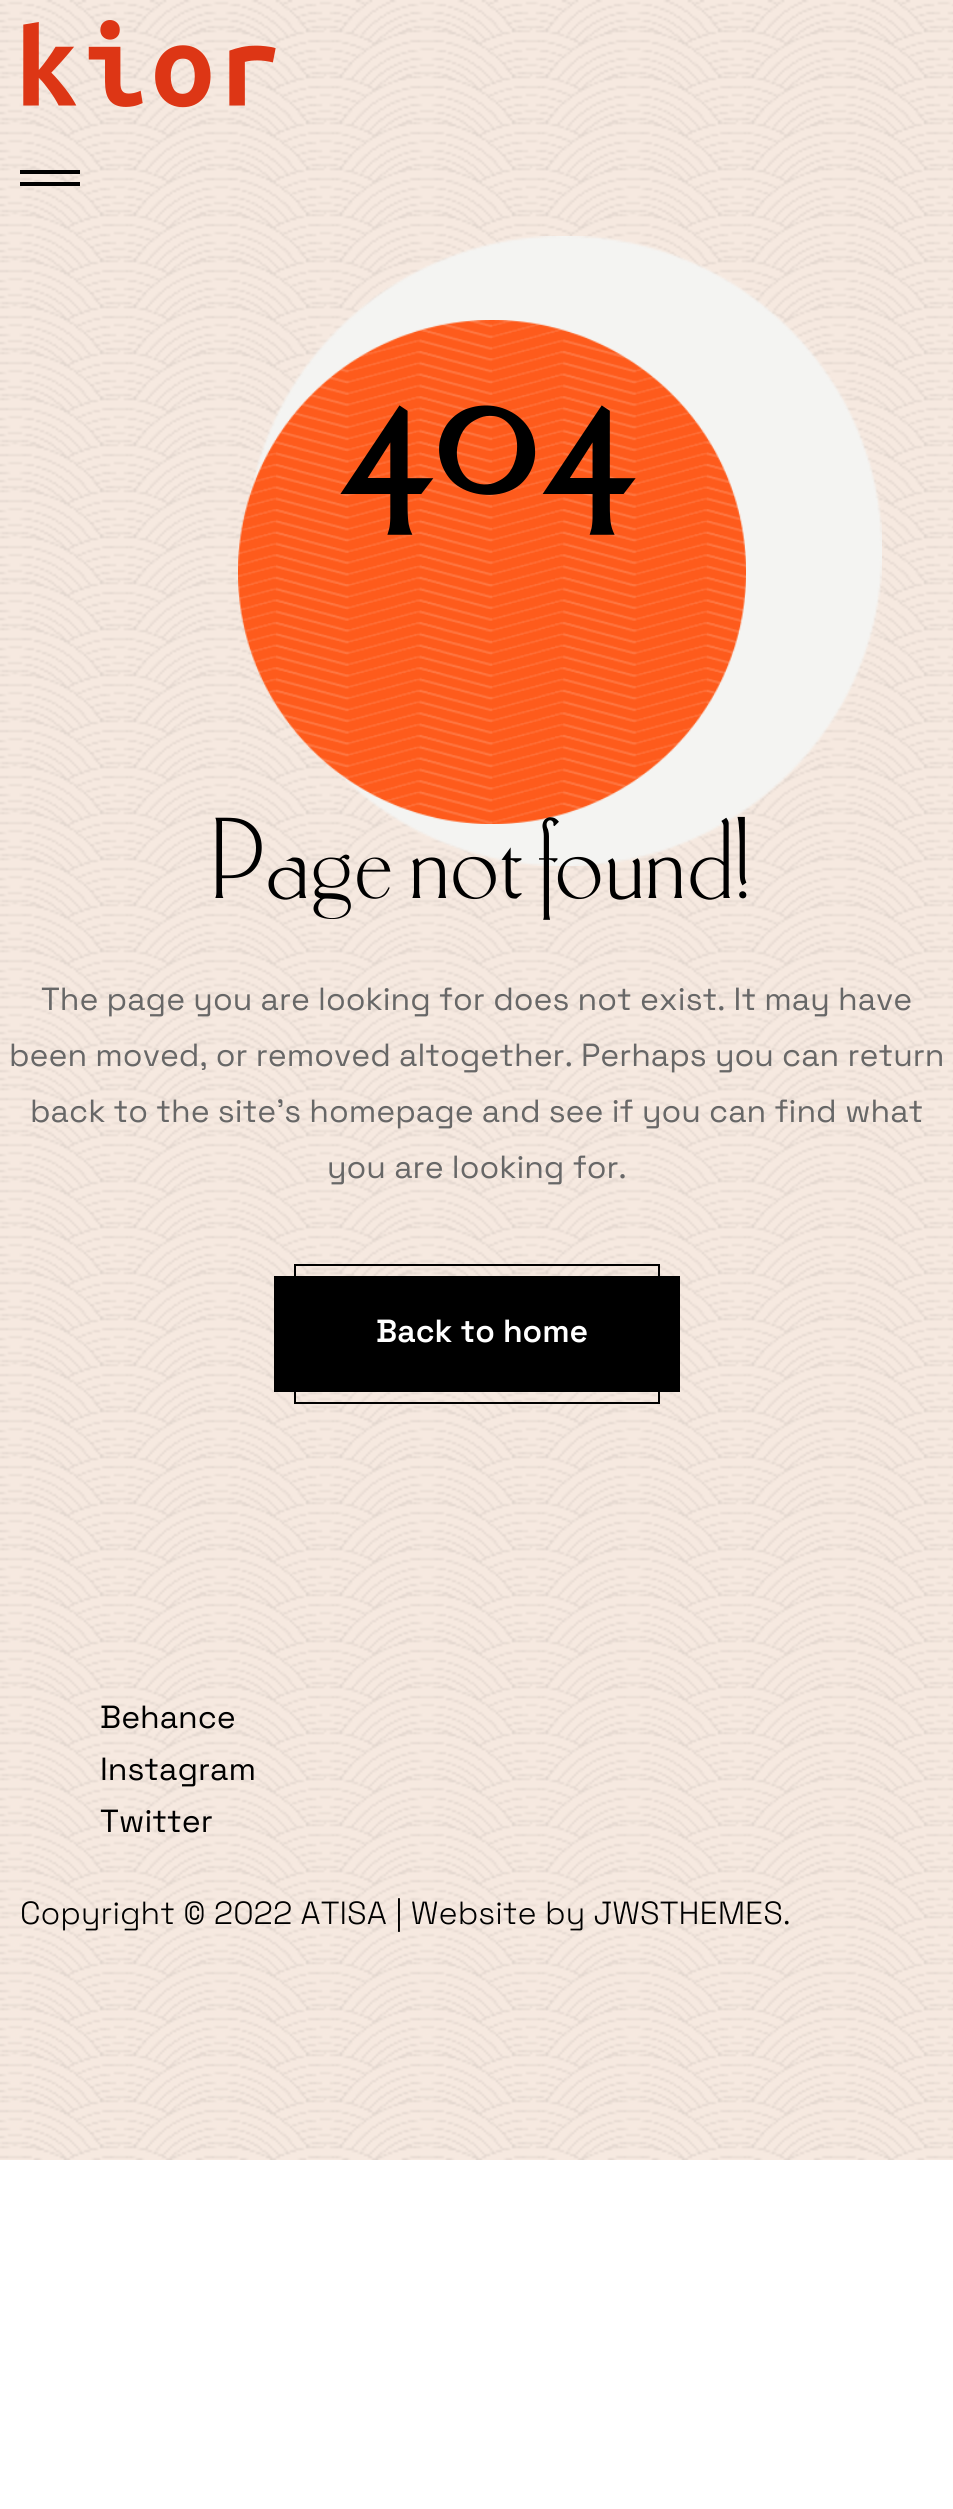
import math
import cairo

surface = cairo.ImageSurface(cairo.FORMAT_RGB24, 953, 2509)
ctx = cairo.Context(surface)
options = cairo.FontOptions()
options.set_hint_metrics(cairo.HINT_METRICS_OFF)
options.set_hint_style(cairo.HINT_STYLE_NONE)
ctx.set_font_options(options)
ctx.set_miter_limit(4)


def picture(path, x, y, w, h):
    ctx.save()
    ctx.set_source_surface(cairo.ImageSurface.create_from_png(path), x, y)
    ctx.rectangle(x, y, w, h)
    ctx.fill()
    ctx.restore()


ctx.set_source_rgb(1, 1, 1)
ctx.paint()
picture("img2.png", 0, 0, 953, 2160)
picture("img1.png", 23, 20, 253, 88)
ctx.set_source_rgb(0, 0, 0)
ctx.rectangle(20, 170, 60, 4)
ctx.fill()
ctx.rectangle(20, 182, 60, 4)
ctx.fill()
picture("img3.png", 247, 236, 635, 630)
picture("img4.png", 238, 320, 508, 504)
ctx.select_font_face("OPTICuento", cairo.FONT_SLANT_NORMAL, cairo.FONT_WEIGHT_BOLD)
ctx.set_font_size(208)
ctx.move_to(325, 494)
ctx.show_text("404")
ctx.select_font_face("OPTICuento Medium")
ctx.set_font_size(101.5)
ctx.move_to(207, 898)
ctx.show_text("Page not found!")
ctx.select_font_face("Space Grotesk")
ctx.set_font_size(32)
ctx.set_source_rgb(0.404, 0.404, 0.404)
ctx.move_to(41, 1010)
ctx.show_text("The page you are looking for does not exist. It may have")
ctx.move_to(9, 1066)
ctx.show_text("been moved, or removed altogether. Perhaps you can return")
ctx.move_to(30, 1122)
ctx.show_text("back to the site’s homepage and see if you can find what")
ctx.move_to(327, 1178)
ctx.show_text("you are looking for.")
ctx.set_source_rgb(0, 0, 0)
ctx.rectangle(274, 1276, 406, 116)
ctx.fill()
ctx.rectangle(294, 1264, 366, 2)
ctx.fill()
ctx.rectangle(294, 1402, 366, 2)
ctx.fill()
ctx.rectangle(658, 1266, 2, 136)
ctx.fill()
ctx.rectangle(294, 1266, 2, 136)
ctx.fill()
ctx.select_font_face("Space Grotesk SemiBold")
ctx.set_source_rgb(1, 1, 1)
ctx.move_to(376, 1342)
ctx.show_text("Back to home")
ctx.select_font_face("Space Grotesk")
ctx.set_source_rgb(0, 0, 0)
ctx.move_to(100, 1728)
ctx.show_text("Behance")
ctx.move_to(100, 1780)
ctx.show_text("Instagram")
ctx.move_to(100, 1832)
ctx.show_text("Twitter")
ctx.select_font_face("Space Grotesk Light")
ctx.move_to(20, 1924)
ctx.show_text("Copyright © 2022 ATISA | Website by JWSTHEMES.")
surface.write_to_png("page.png")
